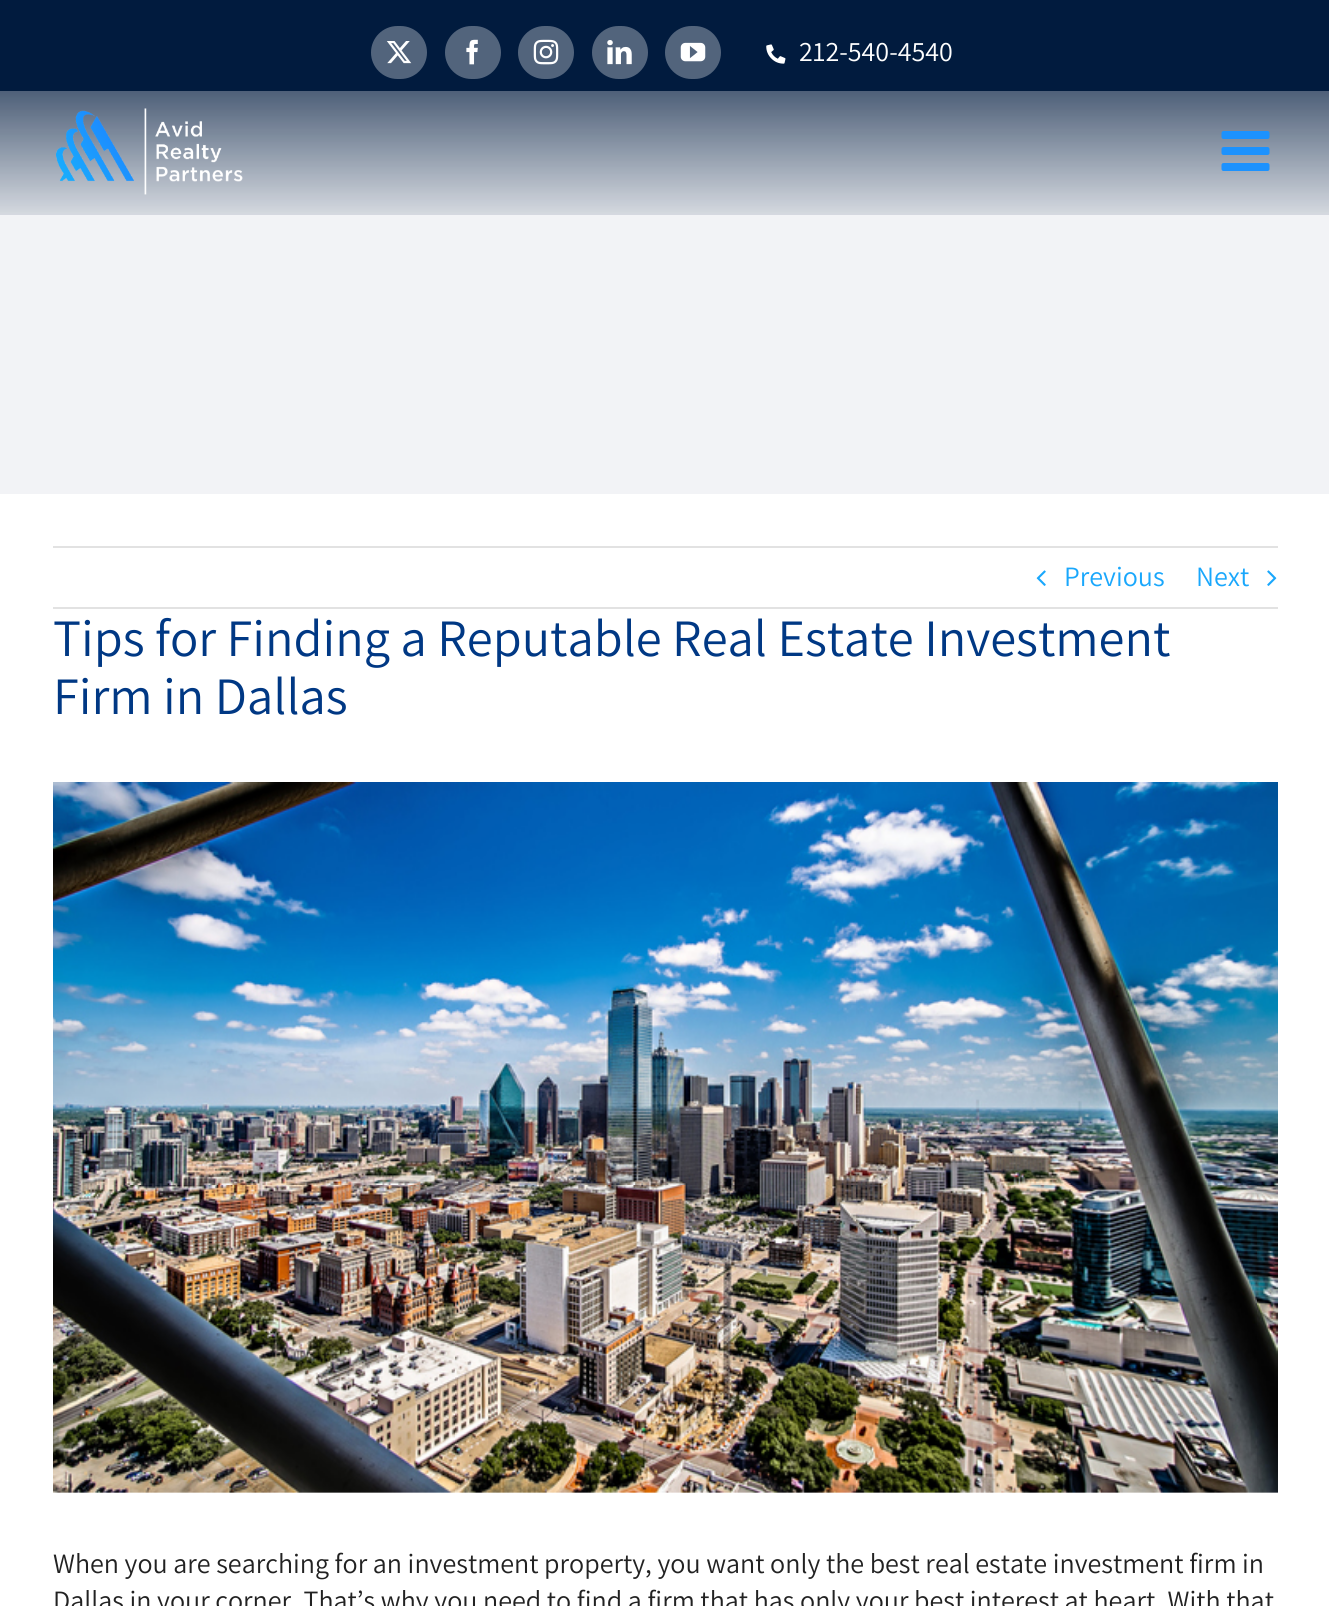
import math
import cairo

surface = cairo.ImageSurface(cairo.FORMAT_RGB24, 1329, 1606)
ctx = cairo.Context(surface)
options = cairo.FontOptions()
options.set_hint_metrics(cairo.HINT_METRICS_OFF)
options.set_hint_style(cairo.HINT_STYLE_NONE)
ctx.set_font_options(options)
ctx.set_miter_limit(4)


def round_rect(x, y, w, h, r):
    ctx.new_sub_path()
    for i, (u, v) in enumerate([(x + w - r, y + h - r), (x + r, y + h - r), (x + r, y + r), (x + w - r, y + r)]):
        ctx.arc(u, v, r, i * math.pi / 2, (i + 1) * math.pi / 2)
    ctx.close_path()


def picture(path, x, y, w, h):
    ctx.save()
    ctx.set_source_surface(cairo.ImageSurface.create_from_png(path), x, y)
    ctx.rectangle(x, y, w, h)
    ctx.fill()
    ctx.restore()


ctx.set_source_rgb(0.949, 0.953, 0.961)
ctx.paint()
ctx.set_source_rgb(0.004, 0.106, 0.243)
ctx.rectangle(0, 0, 1329, 91)
ctx.fill()
ctx.set_source_rgb(0.322, 0.392, 0.486)
round_rect(371, 26, 56, 53, 26.5)
ctx.fill()
picture("img1.png", 386, 41, 26, 23)
round_rect(445, 26, 56, 53, 26.5)
ctx.fill()
picture("img2.png", 466, 39, 12, 26)
round_rect(518, 26, 56, 53, 26.5)
ctx.fill()
picture("img3.png", 533, 39, 26, 26)
round_rect(592, 26, 56, 53, 26.5)
ctx.fill()
picture("img4.png", 607, 40, 25, 25)
round_rect(665, 26, 56, 53, 26.5)
ctx.fill()
picture("img5.png", 680, 42, 26, 20)
picture("img6.png", 766, 44, 20, 20)
ctx.select_font_face("Assistant")
ctx.set_font_size(28)
ctx.set_source_rgb(1, 1, 1)
ctx.move_to(799, 61)
ctx.show_text("212-540-4540")
gradient = cairo.LinearGradient(665, 87, 665, 215)
gradient.add_color_stop_rgba(0, 0.004, 0.106, 0.243, 0.7)
gradient.add_color_stop_rgba(1, 0.004, 0.106, 0.243, 0.12)
ctx.set_source(gradient)
ctx.rectangle(0, 91, 1329, 124)
ctx.fill()
picture("img7.png", 56, 108, 187, 87)
picture("img8.png", 1221, 131, 49, 40)
ctx.set_source_rgb(1, 1, 1)
ctx.rectangle(0, 494, 1329, 1112)
ctx.fill()
ctx.set_source_rgb(0.886, 0.886, 0.886)
ctx.rectangle(53, 546, 1225, 2)
ctx.fill()
ctx.rectangle(53, 607, 1225, 2)
ctx.fill()
picture("img9.png", 1036, 570, 10, 16)
ctx.set_source_rgb(0.098, 0.655, 0.988)
ctx.move_to(1064, 586)
ctx.show_text("Previous")
ctx.move_to(1196, 586)
ctx.show_text("Next")
picture("img10.png", 1267, 570, 10, 16)
ctx.set_font_size(52.5)
ctx.set_source_rgb(0, 0.22, 0.518)
ctx.move_to(53, 656)
ctx.show_text("Tips for Finding a Reputable Real Estate Investment")
ctx.move_to(53, 714)
ctx.show_text("Firm in Dallas")
picture("img11.png", 53, 782, 1225, 711)
ctx.set_font_size(28)
ctx.set_source_rgb(0.133, 0.133, 0.133)
ctx.move_to(53, 1573)
ctx.show_text("When you are searching for an investment property, you want only the best real estate investment firm in")
ctx.move_to(53, 1610)
ctx.show_text("Dallas in your corner. That’s why you need to find a firm that has only your best interest at heart. With that")
surface.write_to_png("page.png")
